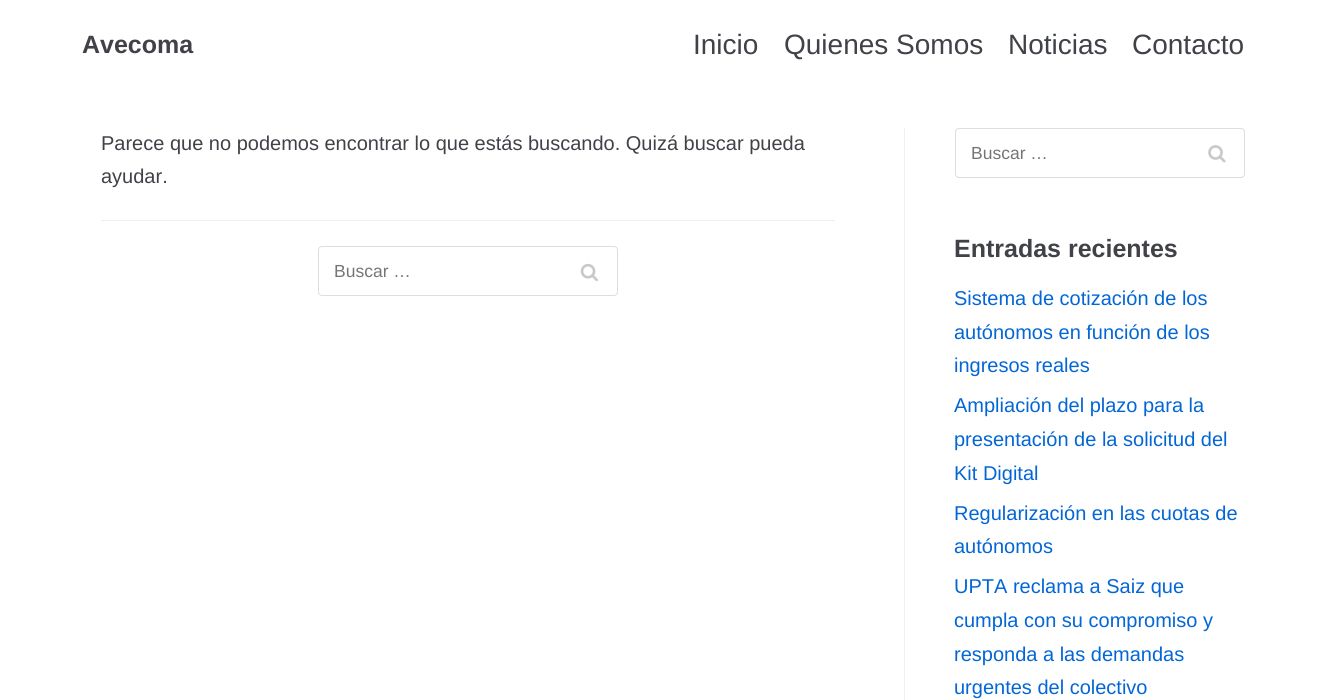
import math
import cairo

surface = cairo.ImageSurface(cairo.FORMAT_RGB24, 1326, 700)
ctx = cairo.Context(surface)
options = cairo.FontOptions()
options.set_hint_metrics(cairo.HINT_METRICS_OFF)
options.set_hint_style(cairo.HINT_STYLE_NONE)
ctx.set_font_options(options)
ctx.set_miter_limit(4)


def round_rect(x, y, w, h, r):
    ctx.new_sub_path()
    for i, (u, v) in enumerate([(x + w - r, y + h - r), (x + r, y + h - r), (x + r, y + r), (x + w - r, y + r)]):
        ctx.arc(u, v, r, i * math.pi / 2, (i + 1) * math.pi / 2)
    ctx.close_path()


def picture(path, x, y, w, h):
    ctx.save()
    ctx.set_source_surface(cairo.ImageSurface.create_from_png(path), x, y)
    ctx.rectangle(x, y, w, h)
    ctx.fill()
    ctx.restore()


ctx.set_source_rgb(1, 1, 1)
ctx.paint()
ctx.select_font_face("Liberation Sans", cairo.FONT_SLANT_NORMAL, cairo.FONT_WEIGHT_BOLD)
ctx.set_font_size(25)
ctx.set_source_rgb(0.251, 0.259, 0.282)
ctx.move_to(82, 53)
ctx.show_text("Avecoma")
ctx.select_font_face("Liberation Sans")
ctx.set_font_size(28)
ctx.move_to(693, 54)
ctx.show_text("Inicio")
ctx.move_to(784, 54)
ctx.show_text("Quienes Somos")
ctx.move_to(1008, 54)
ctx.show_text("Noticias")
ctx.move_to(1132, 54)
ctx.show_text("Contacto")
ctx.set_font_size(20)
ctx.move_to(101, 150)
ctx.show_text("Parece que no podemos encontrar lo que estás buscando. Quizá buscar pueda")
ctx.move_to(101, 183)
ctx.show_text("ayudar.")
ctx.set_source_rgb(0.941, 0.941, 0.941)
ctx.rectangle(101, 220, 734, 1)
ctx.fill()
round_rect(318.5, 246.5, 299, 49, 3.5)
ctx.set_source_rgb(0.867, 0.867, 0.867)
ctx.set_line_width(1)
ctx.stroke()
ctx.set_font_size(17.5)
ctx.set_source_rgb(0.459, 0.459, 0.459)
ctx.move_to(334, 277)
ctx.show_text("Buscar …")
picture("img1.png", 580, 263, 18, 18)
ctx.set_source_rgb(0.941, 0.941, 0.941)
ctx.rectangle(904, 128, 1, 572)
ctx.fill()
round_rect(955.5, 128.5, 289, 49, 3.5)
ctx.set_source_rgb(0.867, 0.867, 0.867)
ctx.stroke()
ctx.set_source_rgb(0.459, 0.459, 0.459)
ctx.move_to(971, 159)
ctx.show_text("Buscar …")
picture("img2.png", 1208, 145, 18, 18)
ctx.select_font_face("Liberation Sans", cairo.FONT_SLANT_NORMAL, cairo.FONT_WEIGHT_BOLD)
ctx.set_font_size(25)
ctx.set_source_rgb(0.251, 0.259, 0.282)
ctx.move_to(954, 257)
ctx.show_text("Entradas recientes")
ctx.select_font_face("Liberation Sans")
ctx.set_font_size(20)
ctx.set_source_rgb(0.012, 0.4, 0.839)
ctx.move_to(954, 305)
ctx.show_text("Sistema de cotización de los")
ctx.move_to(954, 339)
ctx.show_text("autónomos en función de los")
ctx.move_to(954, 372)
ctx.show_text("ingresos reales")
ctx.move_to(954, 412)
ctx.show_text("Ampliación del plazo para la")
ctx.move_to(954, 446)
ctx.show_text("presentación de la solicitud del")
ctx.move_to(954, 480)
ctx.show_text("Kit Digital")
ctx.move_to(954, 520)
ctx.show_text("Regularización en las cuotas de")
ctx.move_to(954, 553)
ctx.show_text("autónomos")
ctx.move_to(954, 593)
ctx.show_text("UPTA reclama a Saiz que")
ctx.move_to(954, 627)
ctx.show_text("cumpla con su compromiso y")
ctx.move_to(954, 661)
ctx.show_text("responda a las demandas")
ctx.move_to(954, 694)
ctx.show_text("urgentes del colectivo")
surface.write_to_png("page.png")
